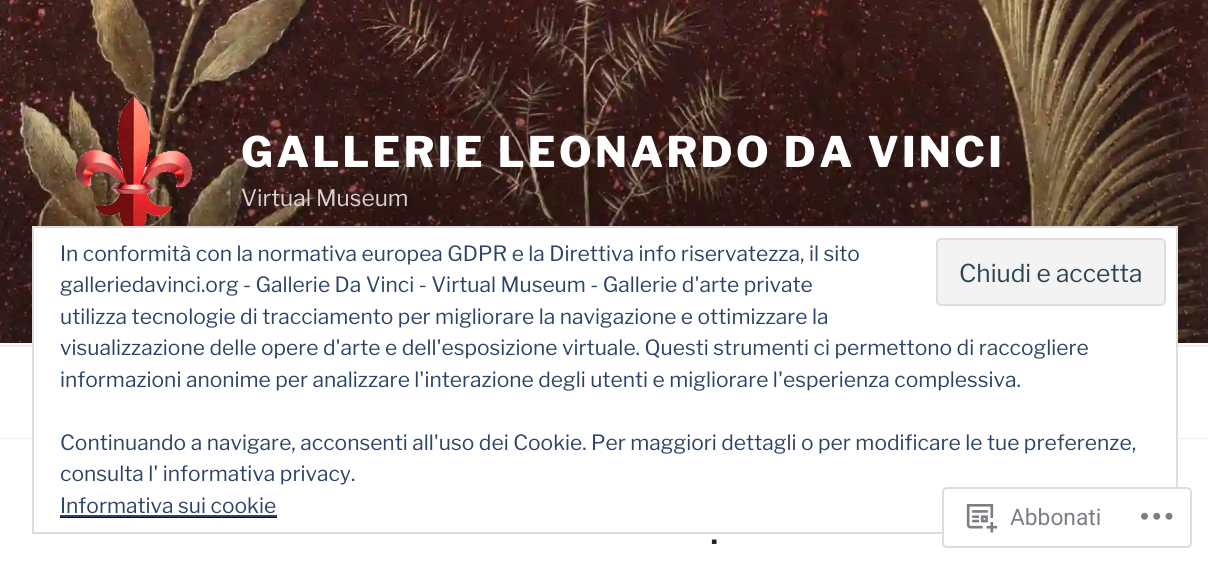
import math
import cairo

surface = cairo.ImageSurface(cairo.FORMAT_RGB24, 1208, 564)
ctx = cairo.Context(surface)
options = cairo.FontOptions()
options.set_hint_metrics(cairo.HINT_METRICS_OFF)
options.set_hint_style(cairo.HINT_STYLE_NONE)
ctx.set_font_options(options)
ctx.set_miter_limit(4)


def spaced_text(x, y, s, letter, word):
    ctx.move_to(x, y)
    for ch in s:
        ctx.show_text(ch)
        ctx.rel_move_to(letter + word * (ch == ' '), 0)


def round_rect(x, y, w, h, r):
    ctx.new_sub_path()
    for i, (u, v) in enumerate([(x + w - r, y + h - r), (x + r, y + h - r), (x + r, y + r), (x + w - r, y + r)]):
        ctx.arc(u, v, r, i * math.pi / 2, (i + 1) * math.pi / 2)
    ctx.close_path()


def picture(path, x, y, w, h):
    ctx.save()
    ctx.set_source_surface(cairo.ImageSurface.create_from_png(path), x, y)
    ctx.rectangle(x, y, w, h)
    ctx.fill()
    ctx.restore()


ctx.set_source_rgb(0.98, 0.98, 0.98)
ctx.paint()
picture("img1.png", 0, 0, 1208, 343)
picture("img2.png", 75, 96, 118, 130)
ctx.select_font_face("Libre Franklin Thin")
ctx.set_font_size(42)
ctx.set_source_rgb(1, 1, 1)
spaced_text(241, 167, "GALLERIE LEONARDO DA VINCI", 3.35, 0)
ctx.select_font_face("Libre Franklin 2 Thin")
ctx.set_font_size(22.75)
ctx.set_source_rgb(0.843, 0.824, 0.824)
ctx.move_to(241, 206)
ctx.show_text("Virtual Museum")
ctx.set_source_rgb(1, 1, 1)
ctx.rectangle(0, 347, 1208, 91)
ctx.fill()
ctx.set_source_rgb(0.933, 0.933, 0.933)
ctx.rectangle(0, 345, 1208, 2)
ctx.fill()
ctx.rectangle(0, 438, 1208, 1)
ctx.fill()
ctx.set_source_rgb(1, 1, 1)
ctx.rectangle(0, 439, 1208, 125)
ctx.fill()
ctx.select_font_face("Libre Franklin Thin")
ctx.set_font_size(24.5)
ctx.set_source_rgb(0.133, 0.133, 0.133)
spaced_text(711, 544, ".", 3, 0)
ctx.set_source_rgb(1, 1, 1)
ctx.rectangle(34, 228, 1142, 211)
ctx.fill()
ctx.rectangle(33, 227, 1144, 306)
ctx.set_source_rgb(0.871, 0.871, 0.871)
ctx.stroke()
ctx.select_font_face("Libre Franklin 2 Thin")
ctx.set_font_size(21)
ctx.set_source_rgb(0.18, 0.267, 0.404)
ctx.move_to(60, 261)
ctx.show_text("In conformità con la normativa europea GDPR e la Direttiva info riservatezza, il sito")
ctx.set_source_rgb(0.953, 0.953, 0.953)
round_rect(937, 239, 228, 66, 4)
ctx.fill_preserve()
ctx.set_source_rgb(0.871, 0.871, 0.871)
ctx.stroke()
ctx.set_font_size(24.5)
ctx.set_source_rgb(0.18, 0.267, 0.325)
ctx.move_to(959, 282)
ctx.show_text("Chiudi e accetta")
ctx.set_font_size(21)
ctx.set_source_rgb(0.18, 0.267, 0.404)
ctx.move_to(60, 292)
ctx.show_text("galleriedavinci.org - Gallerie Da Vinci - Virtual Museum - Gallerie d'arte private")
ctx.move_to(60, 324)
ctx.show_text("utilizza tecnologie di tracciamento per migliorare la navigazione e ottimizzare la")
ctx.move_to(60, 355)
ctx.show_text("visualizzazione delle opere d'arte e dell'esposizione virtuale. Questi strumenti ci permettono di raccogliere")
ctx.move_to(60, 387)
ctx.show_text("informazioni anonime per analizzare l'interazione degli utenti e migliorare l'esperienza complessiva.")
ctx.move_to(60, 450)
ctx.show_text("Continuando a navigare, acconsenti all'uso dei Cookie. Per maggiori dettagli o per modificare le tue preferenze,")
ctx.move_to(60, 481)
ctx.show_text("consulta l' informativa privacy.")
ctx.move_to(60, 513)
ctx.show_text("Informativa sui cookie")
ctx.set_source_rgb(0.059, 0.059, 0.059)
ctx.rectangle(60, 517, 217, 1)
ctx.fill()
ctx.set_source_rgb(0.18, 0.267, 0.404)
ctx.rectangle(60, 515, 217, 2)
ctx.fill()
ctx.set_source_rgba(1, 1, 1, 0.98)
round_rect(943, 488, 248, 59, 4)
ctx.fill_preserve()
ctx.set_source_rgb(0.867, 0.867, 0.875)
ctx.stroke()
picture("img3.png", 966, 504, 32, 29)
ctx.select_font_face("Roboto")
ctx.set_font_size(22.75)
ctx.set_source_rgb(0.482, 0.498, 0.522)
ctx.move_to(1010, 525)
ctx.show_text("Abbonati")
picture("img4.png", 1141, 512, 32, 8)
surface.write_to_png("page.png")
